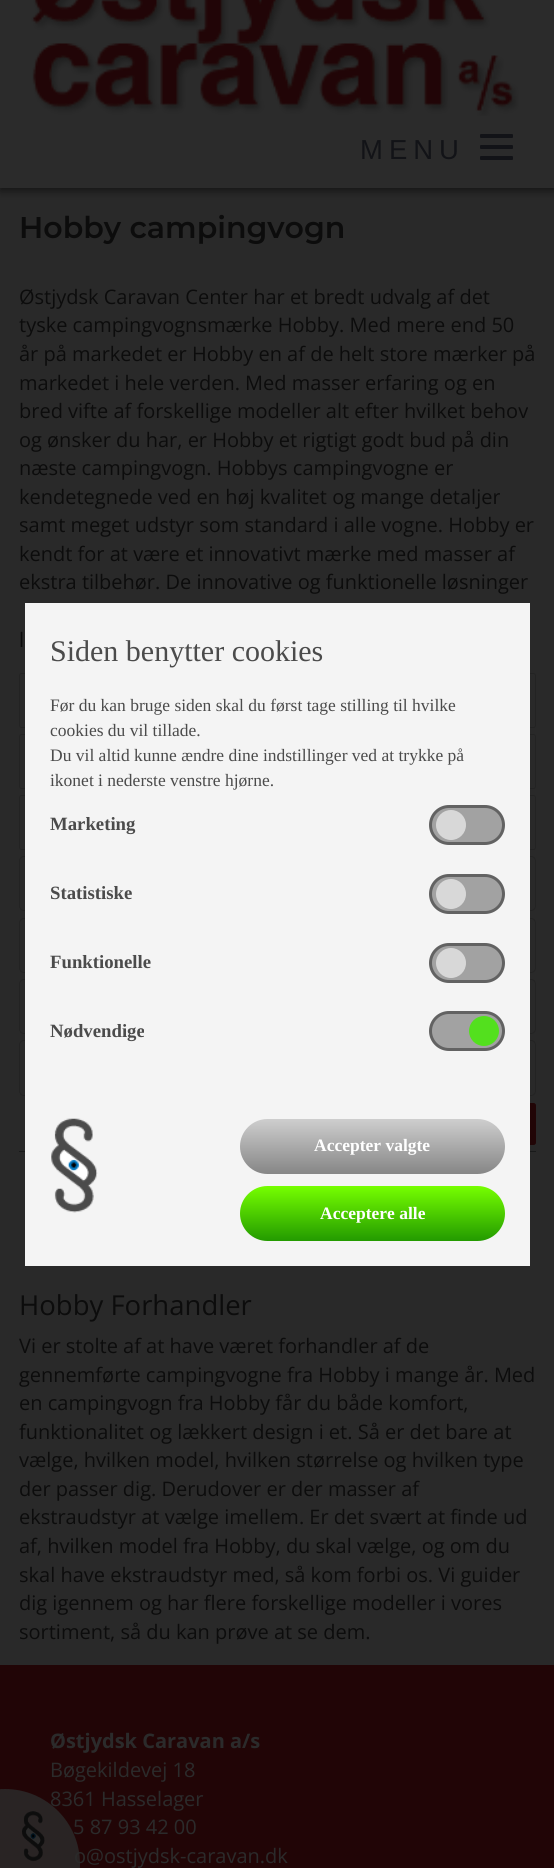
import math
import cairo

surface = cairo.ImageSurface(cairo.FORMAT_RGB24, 554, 1868)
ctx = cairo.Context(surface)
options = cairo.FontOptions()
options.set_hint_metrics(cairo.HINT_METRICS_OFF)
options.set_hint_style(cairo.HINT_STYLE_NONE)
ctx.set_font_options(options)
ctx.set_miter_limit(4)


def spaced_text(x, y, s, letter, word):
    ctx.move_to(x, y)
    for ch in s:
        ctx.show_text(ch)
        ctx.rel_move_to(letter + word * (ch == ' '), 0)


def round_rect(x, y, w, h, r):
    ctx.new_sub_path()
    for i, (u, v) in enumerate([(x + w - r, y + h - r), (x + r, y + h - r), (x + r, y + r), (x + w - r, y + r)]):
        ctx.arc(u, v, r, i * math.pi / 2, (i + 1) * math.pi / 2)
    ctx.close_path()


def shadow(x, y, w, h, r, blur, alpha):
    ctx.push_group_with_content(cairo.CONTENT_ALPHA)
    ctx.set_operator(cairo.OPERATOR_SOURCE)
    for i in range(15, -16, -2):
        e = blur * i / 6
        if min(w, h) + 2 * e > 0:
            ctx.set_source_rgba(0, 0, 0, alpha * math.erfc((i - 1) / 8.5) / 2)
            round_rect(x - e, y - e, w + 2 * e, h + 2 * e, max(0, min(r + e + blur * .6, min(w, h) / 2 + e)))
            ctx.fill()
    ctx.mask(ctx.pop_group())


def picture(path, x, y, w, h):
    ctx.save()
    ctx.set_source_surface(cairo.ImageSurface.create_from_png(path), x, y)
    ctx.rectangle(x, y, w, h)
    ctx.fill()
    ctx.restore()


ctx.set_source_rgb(0.161, 0.161, 0.161)
ctx.paint()
ctx.set_source_rgb(0, 0, 0)
shadow(0, -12, 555, 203, 0, 4, 0.5)
ctx.set_source_rgb(0.169, 0.169, 0.169)
ctx.rectangle(0, 0, 554, 188)
ctx.fill()
picture("img1.png", 31, 0, 488, 116)
ctx.set_source_rgb(0.071, 0.078, 0.09)
round_rect(480, 134, 33, 4, 1)
ctx.fill()
ctx.select_font_face("Liberation Sans")
ctx.set_font_size(27.5)
spaced_text(360, 159, "MENU", 6, 0)
round_rect(480, 145, 33, 4, 1)
ctx.fill()
round_rect(480, 156, 33, 4, 1)
ctx.fill()
ctx.select_font_face("Montserrat SemiBold")
ctx.set_font_size(30)
ctx.set_source_rgb(0.047, 0.047, 0.047)
ctx.move_to(19, 238)
ctx.show_text("Hobby campingvogn")
ctx.select_font_face("Open Sans")
ctx.set_font_size(20)
ctx.move_to(19, 304)
ctx.show_text("Østjydsk Caravan Center har et bredt udvalg af det")
ctx.move_to(19, 332)
ctx.show_text("tyske campingvognsmærke Hobby. Med mere end 50")
ctx.move_to(19, 361)
ctx.show_text("år på markedet er Hobby en af de helt store mærker på")
ctx.move_to(19, 390)
ctx.show_text("markedet i hele verden. Med masser erfaring og en")
ctx.move_to(19, 418)
ctx.show_text("bred vifte af forskellige modeller alt efter hvilket behov")
ctx.move_to(19, 447)
ctx.show_text("og ønsker du har, er Hobby et rigtigt godt bud på din")
ctx.move_to(19, 475)
ctx.show_text("næste campingvogn. Hobbys campingvogne er")
ctx.move_to(19, 504)
ctx.show_text("kendetegnede ved en høj kvalitet og mange detaljer")
ctx.move_to(19, 532)
ctx.show_text("samt meget udstyr som standard i alle vogne. Hobby er")
ctx.move_to(19, 561)
ctx.show_text("kendt for at være et innovativt mærke med masser af")
ctx.move_to(19, 589)
ctx.show_text("ekstra tilbehør. De innovative og funktionelle løsninger")
ctx.move_to(19, 647)
ctx.show_text("l")
round_rect(19.5, 673.5, 516, 54, 2)
ctx.set_source_rgb(0.137, 0.137, 0.137)
ctx.set_line_width(1)
ctx.stroke()
round_rect(19.5, 734.5, 516, 54, 2)
ctx.stroke()
round_rect(19.5, 795.5, 516, 54, 2)
ctx.stroke()
round_rect(19.5, 856.5, 516, 54, 4.5)
ctx.stroke()
round_rect(19.5, 918.5, 516, 54, 4.5)
ctx.stroke()
round_rect(19.5, 979.5, 516, 54, 4.5)
ctx.stroke()
round_rect(19.5, 1040.5, 516, 55, 4.5)
ctx.stroke()
ctx.set_source_rgb(0.129, 0.02, 0.027)
round_rect(211.5, 1103.5, 324, 41, 2)
ctx.fill_preserve()
ctx.stroke()
ctx.set_source_rgb(0.098, 0.102, 0.102)
ctx.rectangle(19, 1151, 517, 1)
ctx.fill()
ctx.set_font_size(27.5)
ctx.set_source_rgb(0.047, 0.047, 0.047)
ctx.move_to(19, 1315)
ctx.show_text("Hobby Forhandler")
ctx.set_font_size(20)
ctx.move_to(19, 1353)
ctx.show_text("Vi er stolte af at have været forhandler af de")
ctx.move_to(19, 1382)
ctx.show_text("gennemførte campingvogne fra Hobby i mange år. Med")
ctx.move_to(19, 1410)
ctx.show_text("en campingvogn fra Hobby får du både komfort,")
ctx.move_to(19, 1439)
ctx.show_text("funktionalitet og lækkert design i et. Så er det bare at")
ctx.move_to(19, 1467)
ctx.show_text("vælge, hvilken model, hvilken størrelse og hvilken type")
ctx.move_to(19, 1496)
ctx.show_text("der passer dig. Derudover er der masser af")
ctx.move_to(19, 1524)
ctx.show_text("ekstraudstyr at vælge imellem. Er det svært at finde ud")
ctx.move_to(19, 1553)
ctx.show_text("af, hvilken model fra Hobby, du skal vælge, og om du")
ctx.move_to(19, 1582)
ctx.show_text("skal have ekstraudstyr med, så kom forbi os. Vi guider")
ctx.move_to(19, 1610)
ctx.show_text("dig igennem og har flere forskellige modeller i vores")
ctx.move_to(19, 1639)
ctx.show_text("sortiment, så du kan prøve at se dem.")
ctx.set_source_rgb(0.957, 0.957, 0.957)
ctx.rectangle(25, 603, 505, 663)
ctx.fill()
ctx.select_font_face("Liberation Serif")
ctx.set_font_size(30)
ctx.set_source_rgb(0.294, 0.294, 0.294)
ctx.move_to(50, 661)
ctx.show_text("Siden benytter cookies")
ctx.set_font_size(17.5)
ctx.move_to(50, 711)
ctx.show_text("Før du kan bruge siden skal du først tage stilling til hvilke")
ctx.move_to(50, 736)
ctx.show_text("cookies du vil tillade.")
ctx.move_to(50, 761)
ctx.show_text("Du vil altid kunne ændre dine indstillinger ved at trykke på")
ctx.move_to(50, 786)
ctx.show_text("ikonet i nederste venstre hjørne.")
ctx.select_font_face("Liberation Serif", cairo.FONT_SLANT_NORMAL, cairo.FONT_WEIGHT_BOLD)
ctx.set_font_size(18.75)
ctx.move_to(50, 830)
ctx.show_text("Marketing")
ctx.set_source_rgb(0.635, 0.635, 0.635)
round_rect(430.5, 806.5, 73, 37, 18.5)
ctx.fill_preserve()
ctx.set_source_rgb(0.384, 0.384, 0.384)
ctx.set_line_width(3)
ctx.stroke()
ctx.set_source_rgb(0.847, 0.847, 0.847)
ctx.arc(451, 825, 15, 0, 2 * math.pi)
ctx.fill()
ctx.set_source_rgb(0.294, 0.294, 0.294)
ctx.move_to(50, 899)
ctx.show_text("Statistiske")
ctx.set_source_rgb(0.635, 0.635, 0.635)
round_rect(430.5, 875.5, 73, 37, 18.5)
ctx.fill_preserve()
ctx.set_source_rgb(0.384, 0.384, 0.384)
ctx.stroke()
ctx.set_source_rgb(0.847, 0.847, 0.847)
ctx.arc(451, 894, 15, 0, 2 * math.pi)
ctx.fill()
ctx.set_source_rgb(0.294, 0.294, 0.294)
ctx.move_to(50, 968)
ctx.show_text("Funktionelle")
ctx.set_source_rgb(0.635, 0.635, 0.635)
round_rect(430.5, 944.5, 73, 37, 18.5)
ctx.fill_preserve()
ctx.set_source_rgb(0.384, 0.384, 0.384)
ctx.stroke()
ctx.set_source_rgb(0.847, 0.847, 0.847)
ctx.arc(451, 963, 15, 0, 2 * math.pi)
ctx.fill()
ctx.set_source_rgb(0.294, 0.294, 0.294)
ctx.move_to(50, 1037)
ctx.show_text("Nødvendige")
ctx.set_source_rgb(0.635, 0.635, 0.635)
round_rect(430.5, 1012.5, 73, 37, 18.5)
ctx.fill_preserve()
ctx.set_source_rgb(0.384, 0.384, 0.384)
ctx.stroke()
ctx.set_source_rgb(0.325, 0.878, 0.118)
ctx.arc(484, 1031, 15, 0, 2 * math.pi)
ctx.fill()
picture("img2.png", 51, 1118, 47, 95)
gradient = cairo.LinearGradient(373, 1119, 373, 1174)
gradient.add_color_stop_rgba(0, 0.808, 0.808, 0.808, 1)
gradient.add_color_stop_rgba(1, 0.525, 0.525, 0.525, 1)
ctx.set_source(gradient)
round_rect(240, 1119, 265, 55, 27.5)
ctx.fill()
ctx.set_font_size(17.5)
ctx.set_source_rgb(1, 1, 1)
ctx.move_to(314, 1151)
ctx.show_text("Accepter valgte")
gradient = cairo.LinearGradient(373, 1186, 373, 1241)
gradient.add_color_stop_rgba(0, 0.463, 1, 0, 1)
gradient.add_color_stop_rgba(1, 0.137, 0.604, 0, 1)
ctx.set_source(gradient)
round_rect(240, 1186, 265, 55, 27.5)
ctx.fill()
ctx.set_source_rgb(1, 1, 1)
ctx.move_to(320, 1219)
ctx.show_text("Acceptere alle")
ctx.set_source_rgb(0.129, 0.02, 0.027)
ctx.rectangle(0, 1665, 554, 203)
ctx.fill()
ctx.select_font_face("Open Sans")
ctx.set_font_size(20)
ctx.set_source_rgb(0.169, 0.169, 0.169)
ctx.move_to(50, 1806)
ctx.show_text("8361 Hasselager")
ctx.move_to(73, 1834)
ctx.show_text("5 87 93 42 00")
ctx.move_to(74, 1863)
ctx.show_text("o@ostjydsk-caravan.dk")
ctx.set_source_rgba(0.169, 0.169, 0.169, 0.83)
ctx.new_path()
ctx.arc(5, 1864, 75, 0, 2 * math.pi)
ctx.fill()
picture("img3.png", 22, 1811, 23, 51)
ctx.select_font_face("Open Sans", cairo.FONT_SLANT_NORMAL, cairo.FONT_WEIGHT_BOLD)
ctx.set_source_rgb(0.169, 0.169, 0.169)
ctx.move_to(50, 1748)
ctx.show_text("Østjydsk Caravan a/s")
ctx.select_font_face("Open Sans")
ctx.move_to(50, 1777)
ctx.show_text("Bøgekildevej 18")
surface.write_to_png("page.png")
